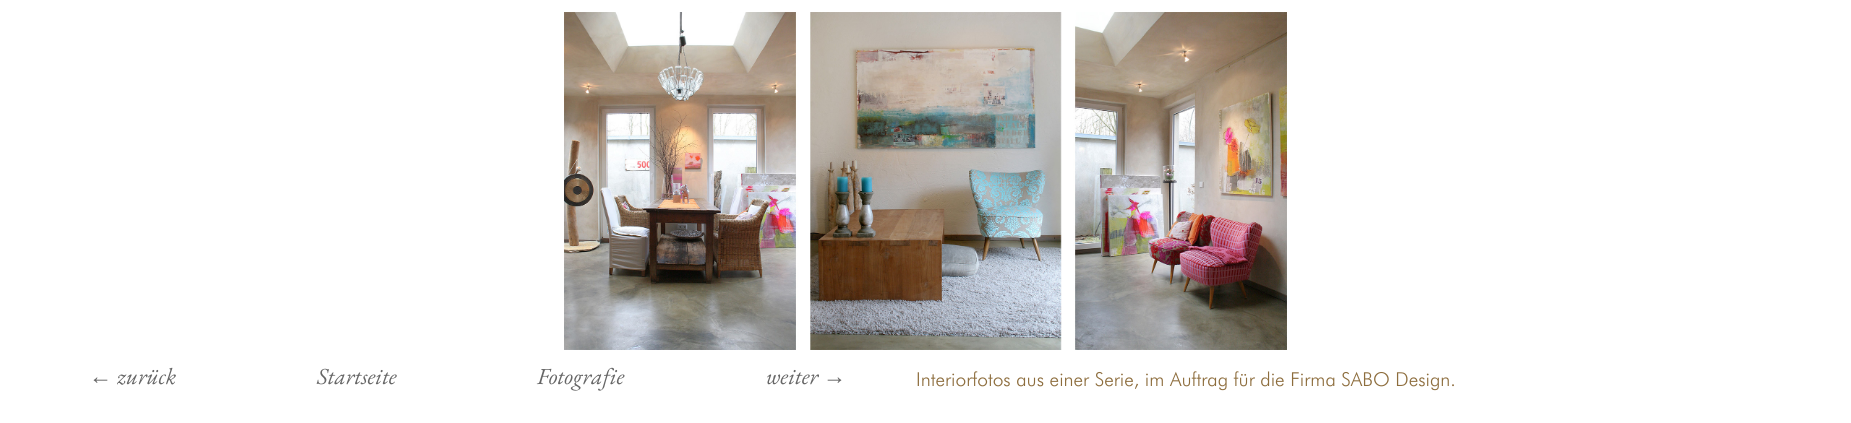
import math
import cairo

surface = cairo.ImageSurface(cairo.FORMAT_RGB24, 1851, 423)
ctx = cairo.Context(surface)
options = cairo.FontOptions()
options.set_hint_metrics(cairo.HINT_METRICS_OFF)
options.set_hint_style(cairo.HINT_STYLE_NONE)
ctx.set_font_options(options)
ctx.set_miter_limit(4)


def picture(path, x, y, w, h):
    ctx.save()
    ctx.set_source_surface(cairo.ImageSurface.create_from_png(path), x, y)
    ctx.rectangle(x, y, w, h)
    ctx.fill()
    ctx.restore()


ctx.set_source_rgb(1, 1, 1)
ctx.paint()
picture("img1.png", 564, 12, 723, 338)
ctx.select_font_face("Liberation Serif", cairo.FONT_SLANT_ITALIC)
ctx.set_font_size(23)
ctx.set_source_rgb(0.4, 0.4, 0.4)
ctx.move_to(89, 384)
ctx.show_text("←")
ctx.select_font_face("EB Garamond", cairo.FONT_SLANT_ITALIC)
ctx.move_to(117, 384)
ctx.show_text("zurück")
ctx.move_to(317, 384)
ctx.show_text("Startseite")
ctx.move_to(537, 384)
ctx.show_text("Fotografie")
ctx.move_to(766, 384)
ctx.show_text("weiter")
ctx.select_font_face("Liberation Serif", cairo.FONT_SLANT_ITALIC)
ctx.move_to(823, 384)
ctx.show_text("→")
ctx.select_font_face("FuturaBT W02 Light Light")
ctx.set_font_size(19.2)
ctx.set_source_rgb(0.553, 0.427, 0.239)
ctx.move_to(916, 386)
ctx.show_text("Interiorfotos aus einer Serie, im Auftrag für die Firma SABO Design.")
surface.write_to_png("page.png")
